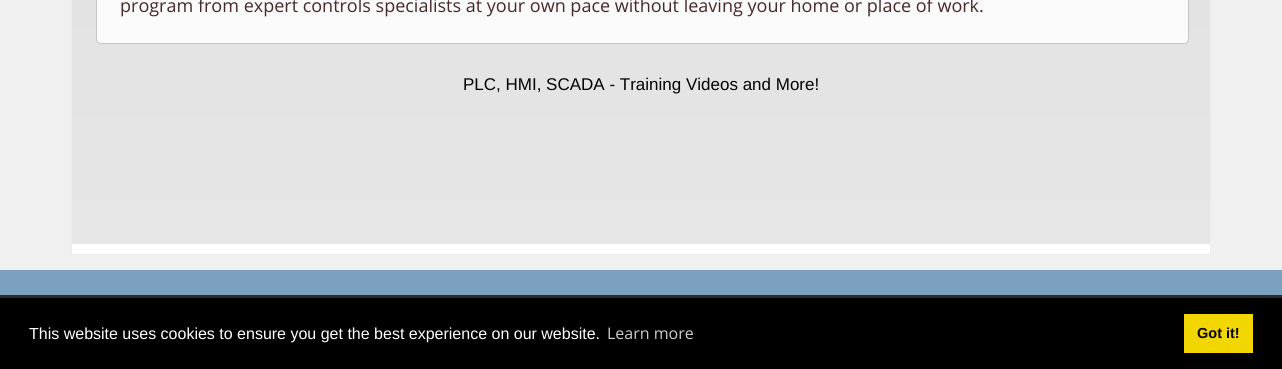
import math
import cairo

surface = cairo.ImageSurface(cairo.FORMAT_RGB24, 1282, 369)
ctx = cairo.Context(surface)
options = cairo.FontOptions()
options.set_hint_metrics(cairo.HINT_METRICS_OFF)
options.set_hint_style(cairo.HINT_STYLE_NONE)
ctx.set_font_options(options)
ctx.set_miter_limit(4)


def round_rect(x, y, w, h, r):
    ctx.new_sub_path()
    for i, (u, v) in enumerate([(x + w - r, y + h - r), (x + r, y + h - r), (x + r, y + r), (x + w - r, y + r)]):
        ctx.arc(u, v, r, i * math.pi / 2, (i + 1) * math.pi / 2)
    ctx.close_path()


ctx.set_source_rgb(0.941, 0.941, 0.941)
ctx.paint()
ctx.set_source_rgb(1, 1, 1)
ctx.rectangle(72, 244, 1138, 10)
ctx.fill()
ctx.set_source_rgb(0.925, 0.925, 0.925)
ctx.rectangle(1210, 0, 1, 255)
ctx.fill()
ctx.rectangle(71, 254, 1140, 1)
ctx.fill()
ctx.rectangle(71, 0, 1, 255)
ctx.fill()
gradient = cairo.LinearGradient(641, -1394, 641, 244)
gradient.add_color_stop_rgba(0, 0.827, 0.827, 0.827, 1)
gradient.add_color_stop_rgba(1, 0.902, 0.902, 0.902, 1)
ctx.set_source(gradient)
ctx.rectangle(72, 0, 1138, 244)
ctx.fill()
ctx.set_source_rgb(0.98, 0.98, 0.98)
round_rect(96.5, -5.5, 1092, 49, 4.5)
ctx.fill_preserve()
ctx.set_source_rgb(0.773, 0.773, 0.773)
ctx.set_line_width(1)
ctx.stroke()
ctx.select_font_face("Open Sans")
ctx.set_font_size(18)
ctx.set_source_rgb(0.278, 0.161, 0.165)
ctx.move_to(120, 12)
ctx.show_text("program from expert controls specialists at your own pace without leaving your home or place of work.")
ctx.select_font_face("Liberation Sans")
ctx.set_font_size(17)
ctx.set_source_rgb(0.008, 0.008, 0.008)
ctx.move_to(463, 90)
ctx.show_text("PLC, HMI, SCADA - Training Videos and More!")
ctx.set_source_rgb(0.161, 0.161, 0.161)
ctx.rectangle(0, 295, 1282, 3)
ctx.fill()
ctx.set_source_rgb(0.486, 0.627, 0.753)
ctx.rectangle(0, 270, 1282, 25)
ctx.fill()
ctx.set_source_rgb(0, 0, 0)
ctx.rectangle(0, 298, 1282, 71)
ctx.fill()
ctx.set_font_size(16)
ctx.set_source_rgb(1, 1, 1)
ctx.move_to(29, 339)
ctx.show_text("This website uses cookies to ensure you get the best experience on our website.")
ctx.select_font_face("Open Sans")
ctx.set_source_rgb(0.8, 0.8, 0.8)
ctx.move_to(607, 339)
ctx.show_text("Learn more")
ctx.set_source_rgb(0.945, 0.839, 0)
ctx.rectangle(1184, 314, 69, 39)
ctx.fill()
ctx.select_font_face("Liberation Sans", cairo.FONT_SLANT_NORMAL, cairo.FONT_WEIGHT_BOLD)
ctx.set_font_size(14.5)
ctx.set_source_rgb(0.008, 0.008, 0.008)
ctx.move_to(1197, 338)
ctx.show_text("Got it!")
surface.write_to_png("page.png")
